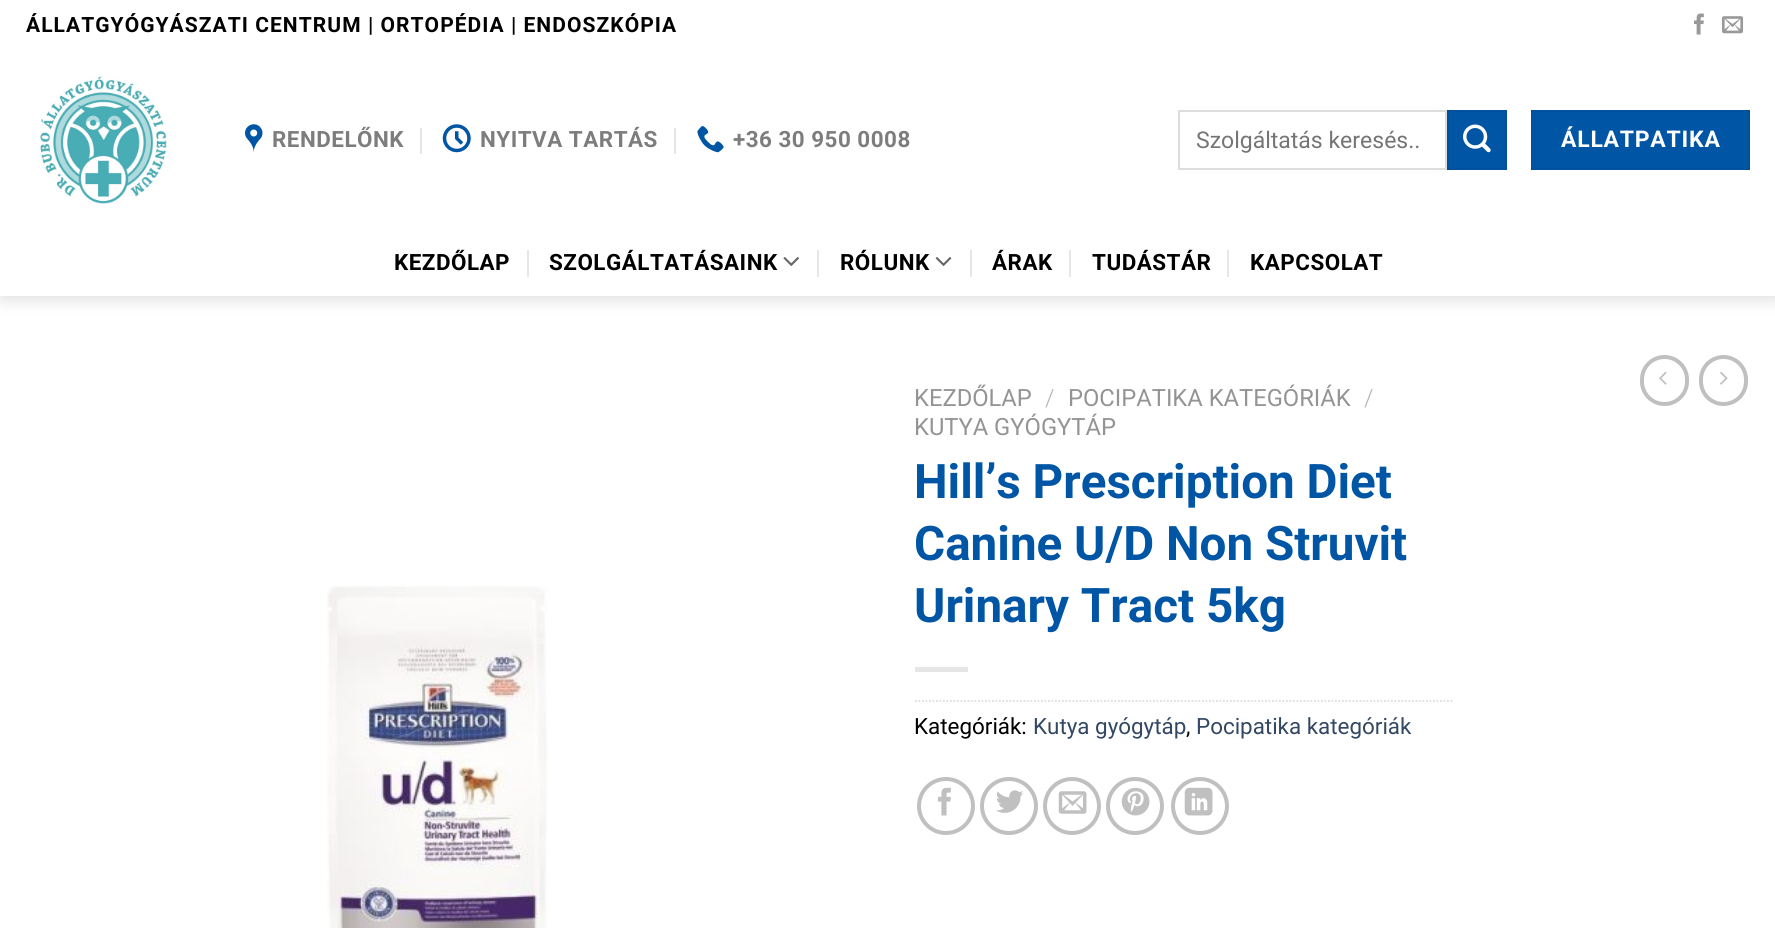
import math
import cairo

surface = cairo.ImageSurface(cairo.FORMAT_RGB24, 1775, 928)
ctx = cairo.Context(surface)
options = cairo.FontOptions()
options.set_hint_metrics(cairo.HINT_METRICS_OFF)
options.set_hint_style(cairo.HINT_STYLE_NONE)
ctx.set_font_options(options)
ctx.set_miter_limit(4)


def spaced_text(x, y, s, letter, word):
    ctx.move_to(x, y)
    for ch in s:
        ctx.show_text(ch)
        ctx.rel_move_to(letter + word * (ch == ' '), 0)


def round_rect(x, y, w, h, r):
    ctx.new_sub_path()
    for i, (u, v) in enumerate([(x + w - r, y + h - r), (x + r, y + h - r), (x + r, y + r), (x + w - r, y + r)]):
        ctx.arc(u, v, r, i * math.pi / 2, (i + 1) * math.pi / 2)
    ctx.close_path()


def shadow(x, y, w, h, r, blur, alpha):
    ctx.push_group_with_content(cairo.CONTENT_ALPHA)
    ctx.set_operator(cairo.OPERATOR_SOURCE)
    for i in range(15, -16, -2):
        e = blur * i / 6
        if min(w, h) + 2 * e > 0:
            ctx.set_source_rgba(0, 0, 0, alpha * math.erfc((i - 1) / 8.5) / 2)
            round_rect(x - e, y - e, w + 2 * e, h + 2 * e, max(0, min(r + e + blur * .6, min(w, h) / 2 + e)))
            ctx.fill()
    ctx.mask(ctx.pop_group())


def picture(path, x, y, w, h):
    ctx.save()
    ctx.set_source_surface(cairo.ImageSurface.create_from_png(path), x, y)
    ctx.rectangle(x, y, w, h)
    ctx.fill()
    ctx.restore()


ctx.set_source_rgb(1, 1, 1)
ctx.paint()
ctx.set_source_rgb(0, 0, 0)
shadow(2, 2, 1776, 296, 0, 9, 0.15)
ctx.set_source_rgb(1, 1, 1)
ctx.rectangle(0, 0, 1775, 296)
ctx.fill()
ctx.select_font_face("Roboto", cairo.FONT_SLANT_NORMAL, cairo.FONT_WEIGHT_BOLD)
ctx.set_font_size(21)
ctx.set_source_rgb(0, 0, 0)
spaced_text(26, 32, "ÁLLATGYÓGYÁSZATI CENTRUM | ORTOPÉDIA | ENDOSZKÓPIA", 1.05, 0)
picture("img1.png", 1694, 13, 10, 22)
picture("img2.png", 1722, 16, 21, 18)
picture("img3.png", 40, 76, 127, 128)
picture("img4.png", 245, 124, 18, 28)
ctx.set_font_size(22.4)
ctx.set_source_rgb(0.49, 0.49, 0.49)
spaced_text(272, 147, "RENDELŐNK", 0.5, 0)
ctx.set_source_rgb(0.902, 0.902, 0.902)
ctx.rectangle(420, 128, 2, 26)
ctx.fill()
picture("img5.png", 442, 124, 29, 29)
ctx.set_source_rgb(0.49, 0.49, 0.49)
spaced_text(480, 147, "NYITVA TARTÁS", 0.5, 0)
ctx.set_source_rgb(0.902, 0.902, 0.902)
ctx.rectangle(674, 128, 2, 26)
ctx.fill()
picture("img6.png", 697, 126, 27, 27)
ctx.set_source_rgb(0.49, 0.49, 0.49)
spaced_text(733, 147, "+36 30 950 0008", 0.5, 0)
ctx.rectangle(1179, 111, 267, 58)
ctx.set_source_rgb(0.867, 0.867, 0.867)
ctx.stroke()
ctx.select_font_face("Roboto")
ctx.set_font_size(23)
ctx.set_source_rgb(0.459, 0.459, 0.459)
ctx.move_to(1196, 148)
ctx.show_text("Szolgáltatás keresés..")
ctx.set_source_rgb(0, 0.333, 0.647)
ctx.rectangle(1448, 111, 58, 58)
ctx.fill_preserve()
ctx.set_source_rgb(0, 0.318, 0.616)
ctx.stroke()
picture("img7.png", 1463, 124, 28, 29)
ctx.set_source_rgb(0, 0.333, 0.647)
ctx.rectangle(1532, 111, 217, 58)
ctx.fill_preserve()
ctx.set_source_rgb(0, 0.318, 0.616)
ctx.stroke()
ctx.select_font_face("Roboto", cairo.FONT_SLANT_NORMAL, cairo.FONT_WEIGHT_BOLD)
ctx.set_source_rgb(1, 1, 1)
spaced_text(1561, 147, "ÁLLATPATIKA", 0.75, 0)
ctx.set_font_size(22.4)
ctx.set_source_rgb(0, 0, 0)
spaced_text(394, 270, "KEZDŐLAP", 0.5, 0)
ctx.set_source_rgb(0.902, 0.902, 0.902)
ctx.rectangle(527, 250, 2, 27)
ctx.fill()
ctx.set_source_rgb(0, 0, 0)
spaced_text(549, 270, "SZOLGÁLTATÁSAINK", 0.5, 0)
picture("img8.png", 783, 257, 16, 9)
ctx.set_source_rgb(0.902, 0.902, 0.902)
ctx.rectangle(817, 250, 2, 27)
ctx.fill()
ctx.set_source_rgb(0, 0, 0)
spaced_text(840, 270, "RÓLUNK", 0.5, 0)
picture("img9.png", 935, 257, 17, 9)
ctx.set_source_rgb(0.902, 0.902, 0.902)
ctx.rectangle(970, 250, 2, 27)
ctx.fill()
ctx.set_source_rgb(0, 0, 0)
spaced_text(992, 270, "ÁRAK", 0.5, 0)
ctx.set_source_rgb(0.902, 0.902, 0.902)
ctx.rectangle(1069, 250, 2, 27)
ctx.fill()
ctx.set_source_rgb(0, 0, 0)
spaced_text(1092, 270, "TUDÁSTÁR", 0.5, 0)
ctx.set_source_rgb(0.902, 0.902, 0.902)
ctx.rectangle(1227, 250, 2, 27)
ctx.fill()
ctx.set_source_rgb(0, 0, 0)
spaced_text(1250, 270, "KAPCSOLAT", 0.5, 0)
picture("img10.png", 327, 586, 221, 342)
ctx.select_font_face("Roboto")
ctx.set_font_size(23.75)
ctx.set_source_rgb(0.58, 0.58, 0.58)
ctx.move_to(914, 406)
ctx.show_text("KEZDŐLAP")
ctx.select_font_face("Roboto Light")
ctx.set_source_rgb(0.698, 0.698, 0.698)
ctx.move_to(1045, 406)
ctx.show_text("/")
ctx.select_font_face("Roboto")
ctx.set_source_rgb(0.58, 0.58, 0.58)
ctx.move_to(1068, 406)
ctx.show_text("POCIPATIKA KATEGÓRIÁK")
ctx.select_font_face("Roboto Light")
ctx.set_source_rgb(0.698, 0.698, 0.698)
ctx.move_to(1364, 406)
ctx.show_text("/")
ctx.select_font_face("Roboto")
ctx.set_source_rgb(0.58, 0.58, 0.58)
ctx.move_to(914, 435)
ctx.show_text("KUTYA GYÓGYTÁP")
ctx.select_font_face("Roboto", cairo.FONT_SLANT_NORMAL, cairo.FONT_WEIGHT_BOLD)
ctx.set_font_size(47.6)
ctx.set_source_rgb(0, 0.333, 0.647)
ctx.move_to(914, 498)
ctx.show_text("Hill’s Prescription Diet")
ctx.move_to(914, 560)
ctx.show_text("Canine U/D Non Struvit")
ctx.move_to(914, 622)
ctx.show_text("Urinary Tract 5kg")
ctx.set_source_rgb(0.902, 0.902, 0.902)
ctx.rectangle(915, 667, 53, 5)
ctx.fill()
ctx.new_path()
ctx.move_to(915, 701)
ctx.line_to(1454, 701)
ctx.set_source_rgb(0.867, 0.867, 0.867)
ctx.set_line_width(1.8)
ctx.set_dash([1.75, 1.75])
ctx.stroke()
ctx.select_font_face("Roboto")
ctx.set_font_size(22.4)
ctx.set_source_rgb(0, 0, 0)
ctx.move_to(914, 734)
ctx.show_text("Kategóriák:")
ctx.set_source_rgb(0.2, 0.282, 0.384)
ctx.move_to(1033, 734)
ctx.show_text("Kutya gyógytáp")
ctx.set_source_rgb(0, 0, 0)
ctx.move_to(1186, 734)
ctx.show_text(",")
ctx.set_source_rgb(0.2, 0.282, 0.384)
ctx.move_to(1196, 734)
ctx.show_text("Pocipatika kategóriák")
ctx.new_path()
ctx.arc(946, 806, 27, 0, 2 * math.pi)
ctx.set_source_rgb(0.753, 0.753, 0.753)
ctx.set_line_width(4)
ctx.set_dash([])
ctx.stroke()
picture("img11.png", 937, 787, 14, 29)
ctx.arc(1009, 806, 27, 0, 2 * math.pi)
ctx.stroke()
picture("img12.png", 996, 790, 28, 23)
ctx.arc(1072, 806, 27, 0, 2 * math.pi)
ctx.stroke()
picture("img13.png", 1058, 791, 29, 23)
ctx.arc(1135, 806, 27, 0, 2 * math.pi)
ctx.stroke()
picture("img14.png", 1121, 787, 29, 29)
ctx.arc(1200, 806, 27, 0, 2 * math.pi)
ctx.stroke()
picture("img15.png", 1184, 787, 29, 29)
round_rect(1642, 357, 45, 47, 22.5)
ctx.stroke()
picture("img16.png", 1659, 371, 8, 14)
round_rect(1701, 357, 45, 47, 22.5)
ctx.stroke()
picture("img17.png", 1720, 371, 8, 14)
surface.write_to_png("page.png")
